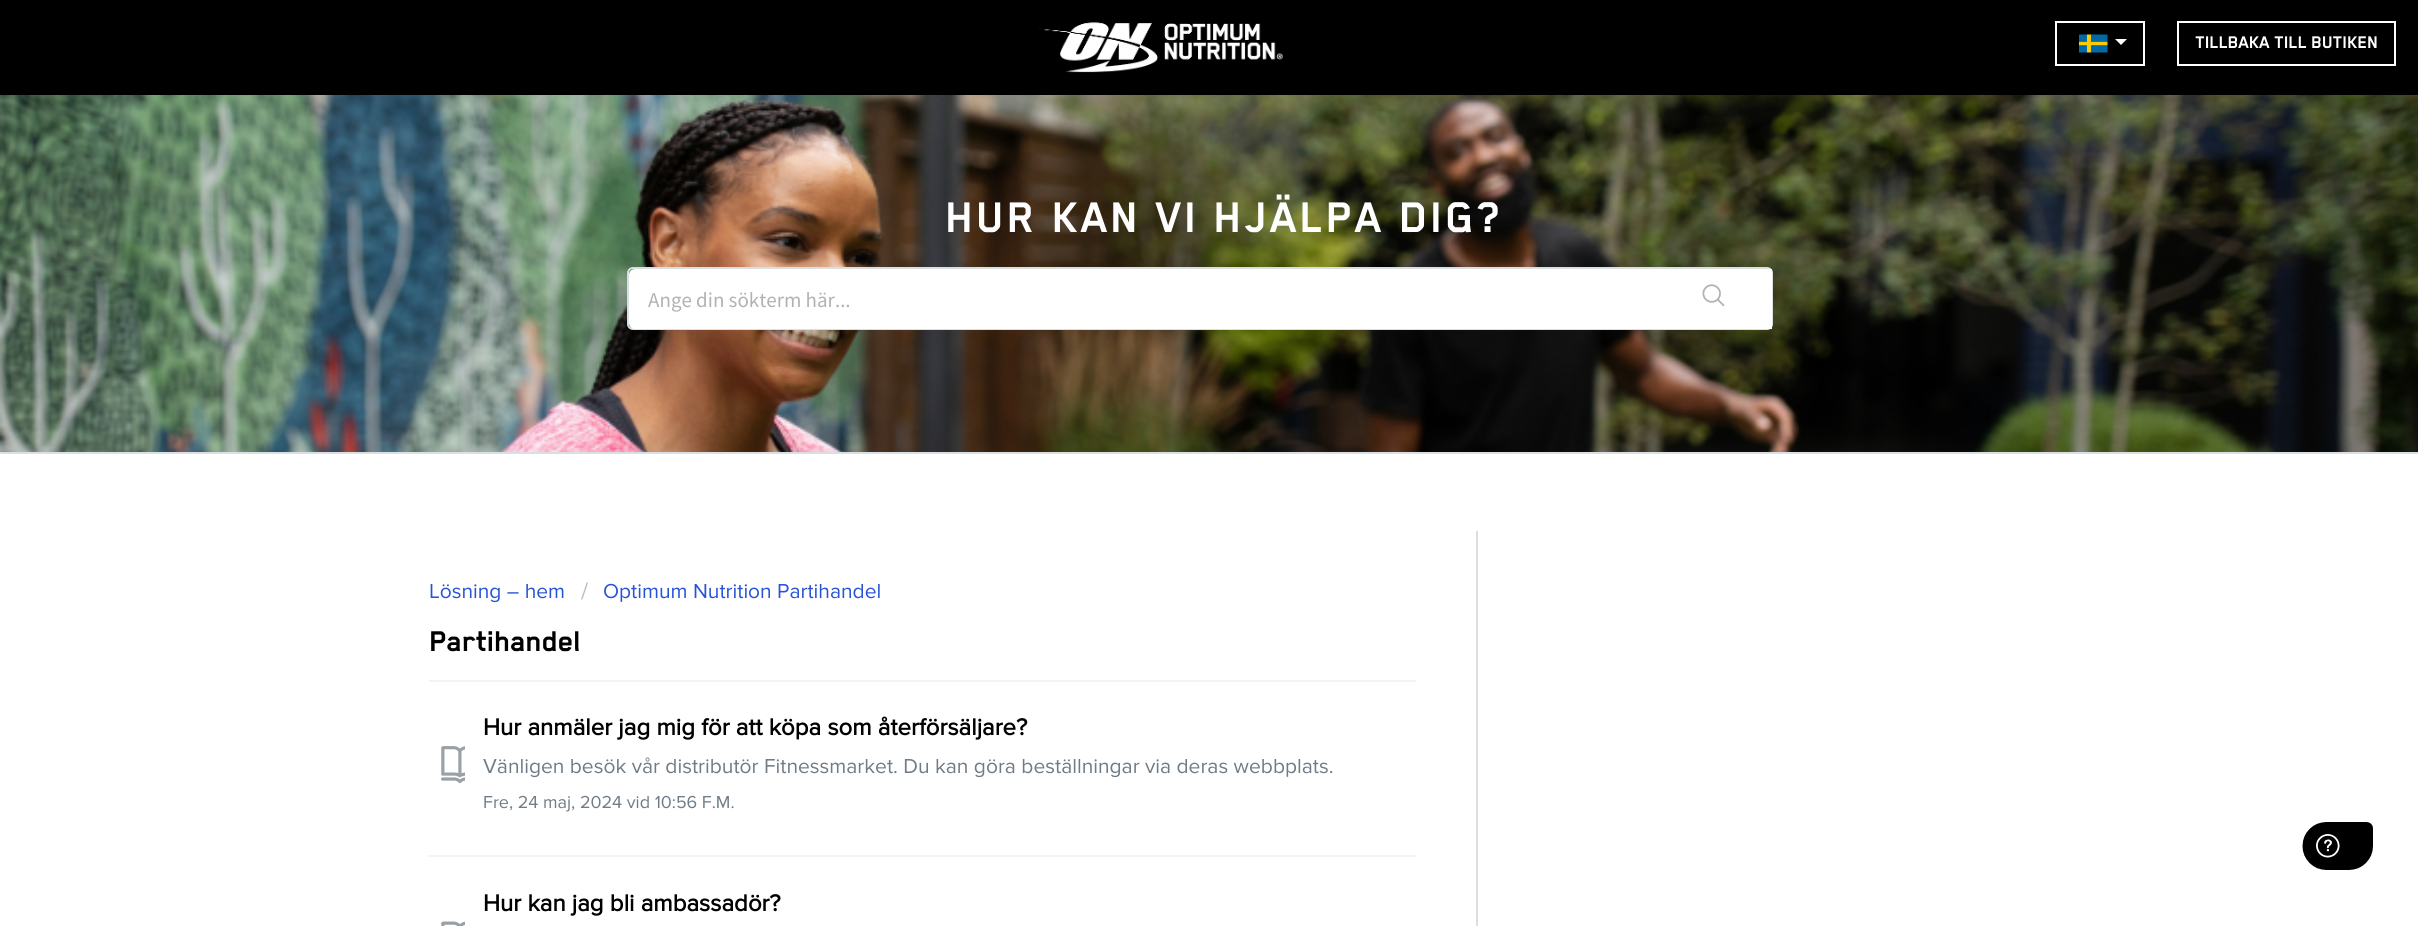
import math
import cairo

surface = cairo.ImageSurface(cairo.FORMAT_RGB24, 2418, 926)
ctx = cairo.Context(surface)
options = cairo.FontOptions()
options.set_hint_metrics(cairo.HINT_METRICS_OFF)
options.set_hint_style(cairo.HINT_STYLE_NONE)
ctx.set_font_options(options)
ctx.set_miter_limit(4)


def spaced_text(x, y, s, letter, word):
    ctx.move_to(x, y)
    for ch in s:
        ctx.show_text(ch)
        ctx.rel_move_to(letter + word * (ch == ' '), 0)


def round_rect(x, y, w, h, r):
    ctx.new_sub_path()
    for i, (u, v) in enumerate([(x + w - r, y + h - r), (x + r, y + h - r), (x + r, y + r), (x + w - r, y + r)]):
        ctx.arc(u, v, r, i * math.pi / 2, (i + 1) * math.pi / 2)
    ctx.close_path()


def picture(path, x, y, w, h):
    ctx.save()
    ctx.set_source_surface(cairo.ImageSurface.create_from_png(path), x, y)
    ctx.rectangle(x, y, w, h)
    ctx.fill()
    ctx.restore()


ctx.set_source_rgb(1, 1, 1)
ctx.paint()
ctx.set_source_rgb(0, 0, 0)
ctx.rectangle(0, 0, 2418, 95)
ctx.fill()
picture("img1.png", 1038, 22, 245, 51)
ctx.rectangle(2056, 22, 88, 43)
ctx.set_source_rgb(1, 1, 1)
ctx.stroke()
picture("img2.png", 2079, 34, 29, 19)
ctx.new_path()
ctx.move_to(2115, 39)
ctx.line_to(2127, 39)
ctx.line_to(2121, 45)
ctx.close_path()
ctx.fill()
ctx.rectangle(2178, 22, 217, 43)
ctx.stroke()
ctx.select_font_face("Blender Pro", cairo.FONT_SLANT_NORMAL, cairo.FONT_WEIGHT_BOLD)
ctx.set_font_size(19.5)
ctx.move_to(2195, 48)
ctx.show_text("TILLBAKA TILL BUTIKEN")
picture("img3.png", 0, 95, 2418, 357)
ctx.set_source_rgb(0.855, 0.875, 0.89)
ctx.rectangle(0, 452, 2418, 2)
ctx.fill()
ctx.set_font_size(49.5)
ctx.set_source_rgb(1, 1, 1)
spaced_text(945, 232, "HUR KAN VI HJÄLPA DIG?", 3, 0)
round_rect(628, 268, 1144, 61, 5)
ctx.set_source_rgb(0.855, 0.875, 0.89)
ctx.stroke()
ctx.set_source_rgb(1, 1, 1)
ctx.new_path()
ctx.move_to(635, 269)
ctx.line_to(1658, 269)
ctx.line_to(1658, 329)
ctx.line_to(635, 329)
ctx.curve_to(631.5, 329, 629, 326.5, 629, 323)
ctx.line_to(629, 275)
ctx.curve_to(629, 271.5, 631.5, 269, 635, 269)
ctx.close_path()
ctx.fill()
ctx.select_font_face("Source Sans Pro")
ctx.set_font_size(21)
ctx.set_source_rgb(0.698, 0.698, 0.698)
ctx.move_to(648, 307)
ctx.show_text("Ange din sökterm här...")
ctx.set_source_rgb(1, 1, 1)
ctx.rectangle(1658, 269, 114, 60)
ctx.fill()
picture("img4.png", 1702, 284, 23, 23)
ctx.set_source_rgb(0.855, 0.875, 0.89)
ctx.rectangle(1476, 531, 2, 395)
ctx.fill()
ctx.select_font_face("Proxima Nova")
ctx.set_source_rgb(0.153, 0.325, 0.843)
ctx.move_to(429, 598)
ctx.show_text("Lösning – hem")
ctx.set_font_size(24)
ctx.set_source_rgb(0.733, 0.733, 0.733)
ctx.move_to(581, 599)
ctx.show_text("/")
ctx.set_font_size(21)
ctx.set_source_rgb(0.153, 0.325, 0.843)
ctx.move_to(603, 598)
ctx.show_text("Optimum Nutrition Partihandel")
ctx.select_font_face("Blender Pro", cairo.FONT_SLANT_NORMAL, cairo.FONT_WEIGHT_BOLD)
ctx.set_font_size(33)
ctx.set_source_rgb(0, 0, 0)
ctx.move_to(429, 651)
ctx.show_text("Partihandel")
ctx.set_source_rgb(0.953, 0.953, 0.953)
ctx.rectangle(429, 680, 987, 2)
ctx.fill()
ctx.select_font_face("Proxima Nova", cairo.FONT_SLANT_NORMAL, cairo.FONT_WEIGHT_BOLD)
ctx.set_font_size(24)
ctx.set_source_rgb(0, 0, 0)
ctx.move_to(483, 735)
ctx.show_text("Hur anmäler jag mig för att köpa som återförsäljare?")
picture("img5.png", 441, 746, 24, 38)
ctx.select_font_face("Proxima Nova")
ctx.set_font_size(21)
ctx.set_source_rgb(0.435, 0.486, 0.529)
ctx.move_to(483, 773)
ctx.show_text("Vänligen besök vår distributör Fitnessmarket. Du kan göra beställningar via deras webbplats.")
ctx.set_font_size(18)
ctx.move_to(483, 808)
ctx.show_text("Fre, 24 maj, 2024 vid 10:56 F.M.")
ctx.set_source_rgb(0.953, 0.953, 0.953)
ctx.rectangle(429, 855, 987, 2)
ctx.fill()
ctx.select_font_face("Proxima Nova", cairo.FONT_SLANT_NORMAL, cairo.FONT_WEIGHT_BOLD)
ctx.set_font_size(24)
ctx.set_source_rgb(0, 0, 0)
ctx.move_to(483, 911)
ctx.show_text("Hur kan jag bli ambassadör?")
picture("img6.png", 441, 921, 24, 5)
picture("img7.png", 2302, 822, 71, 48)
surface.write_to_png("page.png")
